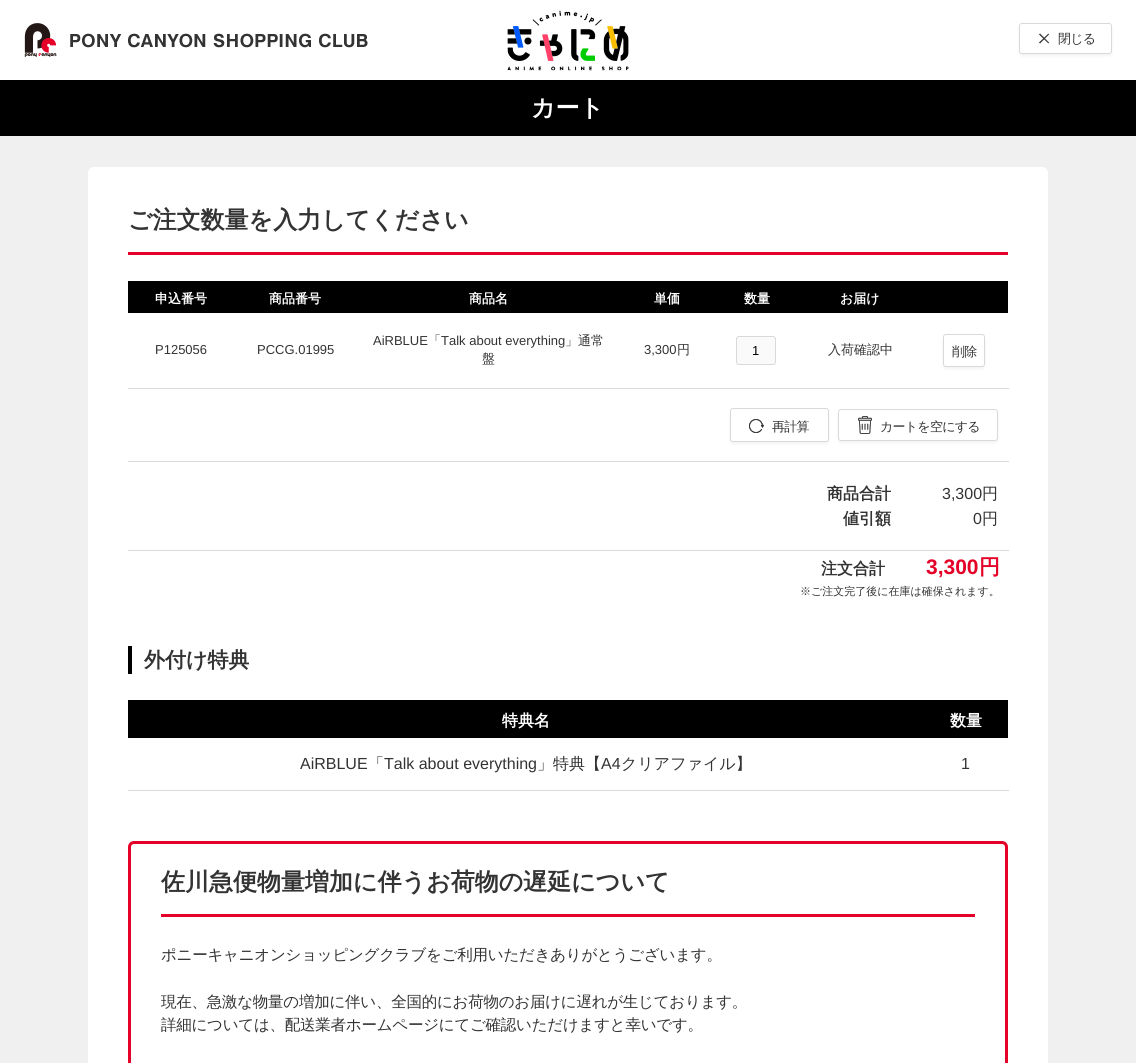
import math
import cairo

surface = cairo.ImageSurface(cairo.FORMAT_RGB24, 1136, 1063)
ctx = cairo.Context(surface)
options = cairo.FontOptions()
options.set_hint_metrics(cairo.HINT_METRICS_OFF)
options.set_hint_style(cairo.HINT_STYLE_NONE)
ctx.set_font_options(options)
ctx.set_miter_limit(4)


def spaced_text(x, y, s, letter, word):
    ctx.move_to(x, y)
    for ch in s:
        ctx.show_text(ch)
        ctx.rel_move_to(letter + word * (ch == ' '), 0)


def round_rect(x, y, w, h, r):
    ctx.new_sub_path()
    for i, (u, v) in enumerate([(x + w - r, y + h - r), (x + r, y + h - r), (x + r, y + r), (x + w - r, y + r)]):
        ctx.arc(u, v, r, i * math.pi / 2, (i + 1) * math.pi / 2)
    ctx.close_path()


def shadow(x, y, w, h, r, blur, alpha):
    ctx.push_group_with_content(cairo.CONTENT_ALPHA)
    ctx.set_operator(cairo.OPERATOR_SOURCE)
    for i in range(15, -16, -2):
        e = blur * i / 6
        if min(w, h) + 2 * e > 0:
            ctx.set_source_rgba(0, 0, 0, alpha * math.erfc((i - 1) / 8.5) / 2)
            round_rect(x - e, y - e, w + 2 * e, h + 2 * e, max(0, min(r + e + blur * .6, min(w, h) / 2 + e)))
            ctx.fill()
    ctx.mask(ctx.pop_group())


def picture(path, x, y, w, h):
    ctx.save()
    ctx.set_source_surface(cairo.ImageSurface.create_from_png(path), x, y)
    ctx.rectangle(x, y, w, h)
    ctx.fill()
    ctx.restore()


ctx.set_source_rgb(0.941, 0.941, 0.941)
ctx.paint()
ctx.set_source_rgb(1, 1, 1)
ctx.rectangle(0, 0, 1136, 80)
ctx.fill()
picture("img1.png", 24, 23, 344, 34)
picture("img2.png", 507, 10, 122, 61)
ctx.set_source_rgb(0, 0, 0)
shadow(1019, 25, 93, 31, 3, 1.5, 0.05)
ctx.set_source_rgb(1, 1, 1)
round_rect(1019.5, 23.5, 92, 30, 2.5)
ctx.fill_preserve()
ctx.set_source_rgb(0.851, 0.851, 0.851)
ctx.set_line_width(1)
ctx.stroke()
ctx.set_source_rgb(0.2, 0.2, 0.2)
ctx.new_path()
ctx.move_to(1040, 33.5)
ctx.line_to(1049, 42.5)
ctx.line_to(1048.5, 43.5)
ctx.line_to(1039, 34.5)
ctx.close_path()
ctx.fill()
ctx.select_font_face("WenQuanYi Zen Hei Medium")
ctx.set_font_size(13)
spaced_text(1058, 43, "閉じる", -0.75, 0)
ctx.new_path()
ctx.move_to(1039, 42.5)
ctx.line_to(1048.5, 33.5)
ctx.line_to(1049, 34.5)
ctx.line_to(1040, 43.5)
ctx.close_path()
ctx.fill()
ctx.set_source_rgb(0, 0, 0)
ctx.rectangle(0, 80, 1136, 56)
ctx.fill()
ctx.select_font_face("WenQuanYi Zen Hei", cairo.FONT_SLANT_NORMAL, cairo.FONT_WEIGHT_BOLD)
ctx.set_font_size(24)
ctx.set_source_rgb(1, 1, 1)
ctx.move_to(531, 116)
ctx.show_text("カート")
round_rect(88, 167, 960, 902, 6)
ctx.fill()
ctx.set_source_rgb(0.898, 0, 0.157)
ctx.rectangle(128, 252, 880, 3)
ctx.fill()
ctx.set_source_rgb(0.2, 0.2, 0.2)
ctx.move_to(128, 228)
ctx.show_text("ご注文数量を入力してください")
ctx.set_source_rgb(0, 0, 0)
ctx.rectangle(128, 281, 880, 32)
ctx.fill()
ctx.set_font_size(13)
ctx.set_source_rgb(1, 1, 1)
ctx.move_to(155, 303)
ctx.show_text("申込番号")
ctx.move_to(269, 303)
ctx.show_text("商品番号")
ctx.move_to(469, 303)
ctx.show_text("商品名")
ctx.move_to(654, 303)
ctx.show_text("単価")
ctx.move_to(744, 303)
ctx.show_text("数量")
ctx.move_to(840, 303)
ctx.show_text("お届け")
ctx.set_source_rgb(0.851, 0.851, 0.851)
ctx.rectangle(128, 388, 881, 1)
ctx.fill()
ctx.select_font_face("Liberation Sans")
ctx.set_source_rgb(0.2, 0.2, 0.2)
ctx.move_to(155, 354)
ctx.show_text("P125056")
ctx.move_to(257, 354)
ctx.show_text("PCCG.01995")
ctx.move_to(373, 345)
ctx.show_text("AiRBLUE")
ctx.select_font_face("WenQuanYi Zen Hei Medium")
ctx.move_to(428, 345)
ctx.show_text("「")
ctx.select_font_face("Liberation Sans")
ctx.move_to(441, 345)
ctx.show_text("Talk about everything")
ctx.select_font_face("WenQuanYi Zen Hei Medium")
ctx.move_to(565, 345)
ctx.show_text("」通常")
ctx.move_to(482, 363)
ctx.show_text("盤")
ctx.select_font_face("Liberation Sans")
ctx.move_to(644, 354)
ctx.show_text("3,300")
ctx.select_font_face("WenQuanYi Zen Hei Medium")
ctx.move_to(677, 354)
ctx.show_text("円")
ctx.set_source_rgb(0.98, 0.98, 0.98)
round_rect(736.5, 336.5, 39, 28, 2.5)
ctx.fill_preserve()
ctx.set_source_rgb(0.851, 0.851, 0.851)
ctx.stroke()
ctx.select_font_face("Liberation Sans")
ctx.set_source_rgb(0, 0, 0)
ctx.move_to(752, 355)
ctx.show_text("1")
ctx.select_font_face("WenQuanYi Zen Hei Medium")
ctx.set_source_rgb(0.2, 0.2, 0.2)
ctx.move_to(828, 354)
ctx.show_text("入荷確認中")
ctx.set_source_rgb(0, 0, 0)
shadow(943, 336, 42, 33, 3, 1.5, 0.05)
ctx.set_source_rgb(1, 1, 1)
round_rect(943.5, 334.5, 41, 32, 2.5)
ctx.fill_preserve()
ctx.set_source_rgb(0.851, 0.851, 0.851)
ctx.stroke()
ctx.set_source_rgb(0.2, 0.2, 0.2)
spaced_text(952, 356, "削除", -0.75, 0)
ctx.set_source_rgb(0.851, 0.851, 0.851)
ctx.rectangle(128, 461, 881, 1)
ctx.fill()
ctx.set_source_rgb(0, 0, 0)
shadow(730, 410, 99, 34, 3, 1.5, 0.05)
ctx.set_source_rgb(1, 1, 1)
round_rect(730.5, 408.5, 98, 33, 2.5)
ctx.fill_preserve()
ctx.set_source_rgb(0.851, 0.851, 0.851)
ctx.stroke()
picture("img3.png", 749, 419, 15, 14)
ctx.set_source_rgb(0.2, 0.2, 0.2)
spaced_text(772, 431, "再計算", -0.75, 0)
ctx.set_source_rgb(0, 0, 0)
shadow(838, 411, 160, 32, 3, 1.5, 0.05)
ctx.set_source_rgb(1, 1, 1)
round_rect(838.5, 409.5, 159, 31, 2.5)
ctx.fill_preserve()
ctx.set_source_rgb(0.851, 0.851, 0.851)
ctx.stroke()
picture("img4.png", 858, 416, 14, 18)
ctx.set_source_rgb(0.2, 0.2, 0.2)
spaced_text(880, 431, "カートを空にする", -0.75, 0)
ctx.set_source_rgb(0.851, 0.851, 0.851)
ctx.rectangle(128, 550, 881, 1)
ctx.fill()
ctx.select_font_face("WenQuanYi Zen Hei", cairo.FONT_SLANT_NORMAL, cairo.FONT_WEIGHT_BOLD)
ctx.set_font_size(16)
ctx.set_source_rgb(0.2, 0.2, 0.2)
ctx.move_to(827, 499)
ctx.show_text("商品合計")
ctx.select_font_face("Liberation Sans")
ctx.move_to(942, 499)
ctx.show_text("3,300")
ctx.select_font_face("WenQuanYi Zen Hei Medium")
ctx.move_to(982, 499)
ctx.show_text("円")
ctx.select_font_face("WenQuanYi Zen Hei", cairo.FONT_SLANT_NORMAL, cairo.FONT_WEIGHT_BOLD)
ctx.move_to(843, 524)
ctx.show_text("値引額")
ctx.select_font_face("Liberation Sans")
ctx.move_to(973, 524)
ctx.show_text("0")
ctx.select_font_face("WenQuanYi Zen Hei Medium")
ctx.move_to(982, 524)
ctx.show_text("円")
ctx.select_font_face("WenQuanYi Zen Hei", cairo.FONT_SLANT_NORMAL, cairo.FONT_WEIGHT_BOLD)
ctx.move_to(821, 574)
ctx.show_text("注文合計")
ctx.select_font_face("Liberation Sans", cairo.FONT_SLANT_NORMAL, cairo.FONT_WEIGHT_BOLD)
ctx.set_font_size(21)
ctx.set_source_rgb(0.898, 0, 0.157)
ctx.move_to(926, 574)
ctx.show_text("3,300")
ctx.select_font_face("WenQuanYi Zen Hei", cairo.FONT_SLANT_NORMAL, cairo.FONT_WEIGHT_BOLD)
ctx.move_to(979, 574)
ctx.show_text("円")
ctx.select_font_face("WenQuanYi Zen Hei Medium")
ctx.set_font_size(11)
ctx.set_source_rgb(0.2, 0.2, 0.2)
ctx.move_to(800, 595)
ctx.show_text("※ご注文完了後に在庫は確保されます。")
ctx.set_source_rgb(0, 0, 0)
ctx.rectangle(128, 646, 4, 28)
ctx.fill()
ctx.select_font_face("WenQuanYi Zen Hei", cairo.FONT_SLANT_NORMAL, cairo.FONT_WEIGHT_BOLD)
ctx.set_font_size(21)
ctx.set_source_rgb(0.2, 0.2, 0.2)
ctx.move_to(144, 667)
ctx.show_text("外付け特典")
ctx.set_source_rgb(0, 0, 0)
ctx.rectangle(128, 700, 880, 38)
ctx.fill()
ctx.set_font_size(16)
ctx.set_source_rgb(1, 1, 1)
ctx.move_to(502, 726)
ctx.show_text("特典名")
ctx.move_to(950, 726)
ctx.show_text("数量")
ctx.set_source_rgb(0.851, 0.851, 0.851)
ctx.rectangle(128, 790, 881, 1)
ctx.fill()
ctx.select_font_face("Liberation Sans")
ctx.set_source_rgb(0.2, 0.2, 0.2)
ctx.move_to(300, 769)
ctx.show_text("AiRBLUE")
ctx.select_font_face("WenQuanYi Zen Hei Medium")
ctx.move_to(368, 769)
ctx.show_text("「")
ctx.select_font_face("Liberation Sans")
ctx.move_to(384, 769)
ctx.show_text("Talk about everything")
ctx.select_font_face("WenQuanYi Zen Hei Medium")
ctx.move_to(537, 769)
ctx.show_text("」特典【")
ctx.select_font_face("Liberation Sans")
ctx.move_to(601, 769)
ctx.show_text("A4")
ctx.select_font_face("WenQuanYi Zen Hei Medium")
ctx.move_to(621, 769)
ctx.show_text("クリアファイル】")
ctx.select_font_face("Liberation Sans")
ctx.move_to(961, 769)
ctx.show_text("1")
round_rect(129.5, 842.5, 877, 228, 4.5)
ctx.set_source_rgb(0.898, 0, 0.157)
ctx.set_line_width(3)
ctx.stroke()
ctx.rectangle(161, 914, 814, 3)
ctx.fill()
ctx.select_font_face("WenQuanYi Zen Hei", cairo.FONT_SLANT_NORMAL, cairo.FONT_WEIGHT_BOLD)
ctx.set_font_size(24)
ctx.set_source_rgb(0.2, 0.2, 0.2)
ctx.move_to(161, 890)
ctx.show_text("佐川急便物量増加に伴うお荷物の遅延について")
ctx.select_font_face("WenQuanYi Zen Hei Medium")
ctx.set_font_size(15.55)
spaced_text(161, 960, "ポニーキャニオンショッピングクラブをご利用いただきありがとうございます。", -0.3, 0)
spaced_text(161, 1007, "現在、急激な物量の増加に伴い、全国的にお荷物のお届けに遅れが生じております。", -0.3, 0)
spaced_text(161, 1030, "詳細については、配送業者ホームページにてご確認いただけますと幸いです。", -0.3, 0)
surface.write_to_png("page.png")
